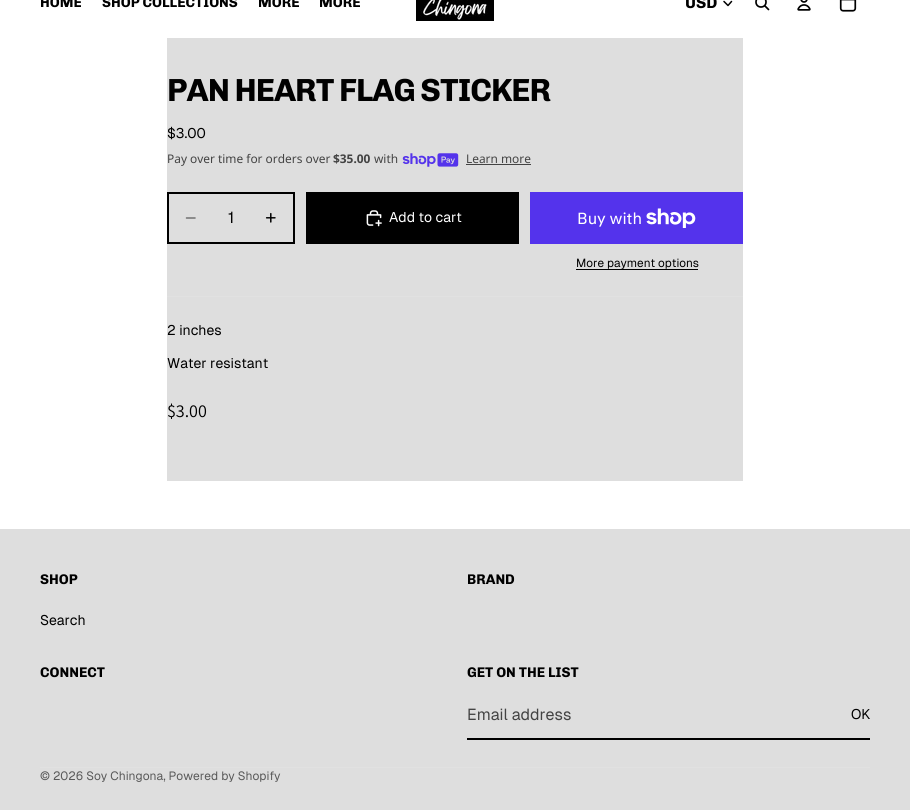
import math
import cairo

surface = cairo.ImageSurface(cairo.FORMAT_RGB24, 910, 810)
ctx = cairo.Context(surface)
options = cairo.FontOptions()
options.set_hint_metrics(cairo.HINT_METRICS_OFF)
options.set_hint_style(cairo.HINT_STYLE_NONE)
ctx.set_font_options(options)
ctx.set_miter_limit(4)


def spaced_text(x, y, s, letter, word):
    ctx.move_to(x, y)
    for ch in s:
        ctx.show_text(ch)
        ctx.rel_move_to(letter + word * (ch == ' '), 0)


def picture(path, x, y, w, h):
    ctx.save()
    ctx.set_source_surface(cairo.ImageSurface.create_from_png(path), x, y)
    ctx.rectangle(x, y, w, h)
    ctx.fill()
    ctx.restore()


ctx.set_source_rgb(1, 1, 1)
ctx.paint()
ctx.select_font_face("Chivo", cairo.FONT_SLANT_NORMAL, cairo.FONT_WEIGHT_BOLD)
ctx.set_font_size(14)
ctx.set_source_rgb(0, 0, 0)
ctx.move_to(40, 7)
ctx.show_text("HOME")
ctx.move_to(102, 7)
ctx.show_text("SHOP COLLECTIONS")
ctx.move_to(258, 7)
ctx.show_text("MORE")
ctx.move_to(319, 7)
ctx.show_text("MORE")
picture("img1.png", 416, 0, 78, 21)
ctx.set_font_size(16)
ctx.move_to(685, 8)
ctx.show_text("USD")
ctx.new_path()
ctx.move_to(731.5, 1.5)
ctx.line_to(728, 5.5)
ctx.line_to(724, 1.5)
ctx.set_line_width(1.5)
ctx.set_line_cap(cairo.LINE_CAP_ROUND)
ctx.set_line_join(cairo.LINE_JOIN_ROUND)
ctx.stroke()
ctx.arc(761, 2, 5, 0, 2 * math.pi)
ctx.set_line_width(1.7)
ctx.set_line_cap(cairo.LINE_CAP_BUTT)
ctx.set_line_join(cairo.LINE_JOIN_MITER)
ctx.stroke()
ctx.new_path()
ctx.move_to(765, 6)
ctx.line_to(768.5, 9.5)
ctx.set_line_cap(cairo.LINE_CAP_ROUND)
ctx.set_line_join(cairo.LINE_JOIN_ROUND)
ctx.stroke()
picture("img2.png", 797, 0, 14, 11)
picture("img3.png", 839, 0, 18, 12)
ctx.set_source_rgb(0.871, 0.871, 0.871)
ctx.rectangle(167, 38, 576, 443)
ctx.fill()
ctx.set_font_size(32)
ctx.set_source_rgb(0, 0, 0)
spaced_text(167, 101, "PAN HEART FLAG STICKER", -1, 0)
ctx.select_font_face("Geist")
ctx.set_font_size(14)
ctx.move_to(167, 138)
ctx.show_text("$3.00")
ctx.select_font_face("Noto Sans")
ctx.set_font_size(11.9)
ctx.set_source_rgb(0.263, 0.263, 0.263)
ctx.move_to(167, 163)
ctx.show_text("Pay over time for orders over")
ctx.select_font_face("Noto Sans", cairo.FONT_SLANT_NORMAL, cairo.FONT_WEIGHT_BOLD)
ctx.move_to(333, 163)
ctx.show_text("$35.00")
ctx.select_font_face("Noto Sans")
ctx.move_to(374, 163)
ctx.show_text("with")
picture("img4.png", 402, 153, 57, 14)
ctx.move_to(466, 163)
ctx.show_text("Learn more")
ctx.rectangle(466, 164, 65, 1)
ctx.fill()
ctx.rectangle(168, 193, 126, 50)
ctx.set_source_rgb(0, 0, 0)
ctx.set_line_width(2)
ctx.set_line_cap(cairo.LINE_CAP_BUTT)
ctx.set_line_join(cairo.LINE_JOIN_MITER)
ctx.stroke()
ctx.new_path()
ctx.move_to(186.5, 218)
ctx.line_to(195, 218)
ctx.set_source_rgb(0.435, 0.435, 0.435)
ctx.set_line_width(1.5)
ctx.set_line_cap(cairo.LINE_CAP_ROUND)
ctx.stroke()
ctx.select_font_face("Geist")
ctx.set_font_size(16)
ctx.set_source_rgb(0, 0, 0)
ctx.move_to(228, 223)
ctx.show_text("1")
picture("img5.png", 265, 212, 11, 11)
ctx.rectangle(306, 192, 213, 52)
ctx.fill()
picture("img6.png", 366, 210, 16, 17)
ctx.set_font_size(14)
ctx.set_source_rgb(1, 1, 1)
ctx.move_to(389, 222)
ctx.show_text("Add to cart")
ctx.set_source_rgb(0.329, 0.2, 0.922)
ctx.rectangle(530, 192, 213, 52)
ctx.fill()
ctx.select_font_face("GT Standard")
ctx.set_font_size(16)
ctx.set_source_rgb(1, 1, 1)
ctx.move_to(577, 224)
ctx.show_text("Buy with")
picture("img7.png", 646, 208, 50, 20)
ctx.select_font_face("Geist")
ctx.set_font_size(11.75)
ctx.set_source_rgb(0, 0, 0)
ctx.move_to(576, 267)
ctx.show_text("More payment options")
ctx.rectangle(576, 269, 122, 1)
ctx.fill()
ctx.set_source_rgb(0.882, 0.882, 0.882)
ctx.rectangle(167, 296, 576, 1)
ctx.fill()
ctx.set_font_size(14)
ctx.set_source_rgb(0, 0, 0)
ctx.move_to(167, 335)
ctx.show_text("2 inches")
ctx.move_to(167, 368)
ctx.show_text("Water resistant")
ctx.select_font_face("Assistant")
ctx.set_font_size(18)
ctx.move_to(167, 417)
ctx.show_text("$3.00")
ctx.set_source_rgb(0.871, 0.871, 0.871)
ctx.rectangle(0, 529, 910, 281)
ctx.fill()
ctx.select_font_face("Chivo", cairo.FONT_SLANT_NORMAL, cairo.FONT_WEIGHT_BOLD)
ctx.set_font_size(14)
ctx.set_source_rgb(0, 0, 0)
ctx.move_to(40, 584)
ctx.show_text("SHOP")
ctx.select_font_face("Geist")
ctx.move_to(40, 625)
ctx.show_text("Search")
ctx.select_font_face("Chivo", cairo.FONT_SLANT_NORMAL, cairo.FONT_WEIGHT_BOLD)
ctx.move_to(467, 584)
ctx.show_text("BRAND")
ctx.move_to(40, 677)
ctx.show_text("CONNECT")
ctx.move_to(467, 677)
ctx.show_text("GET ON THE LIST")
ctx.rectangle(467, 738, 403, 2)
ctx.fill()
ctx.select_font_face("Geist")
ctx.set_font_size(16)
ctx.set_source_rgb(0.263, 0.263, 0.263)
ctx.move_to(467, 720)
ctx.show_text("Email address")
ctx.set_font_size(14)
ctx.set_source_rgb(0, 0, 0)
ctx.move_to(851, 719)
ctx.show_text("OK")
ctx.set_source_rgb(0.882, 0.882, 0.882)
ctx.rectangle(40, 767, 830, 1)
ctx.fill()
ctx.set_font_size(12)
ctx.set_source_rgb(0.349, 0.349, 0.349)
ctx.move_to(40, 780)
ctx.show_text("© 2026 Soy Chingona, Powered by Shopify")
surface.write_to_png("page.png")
